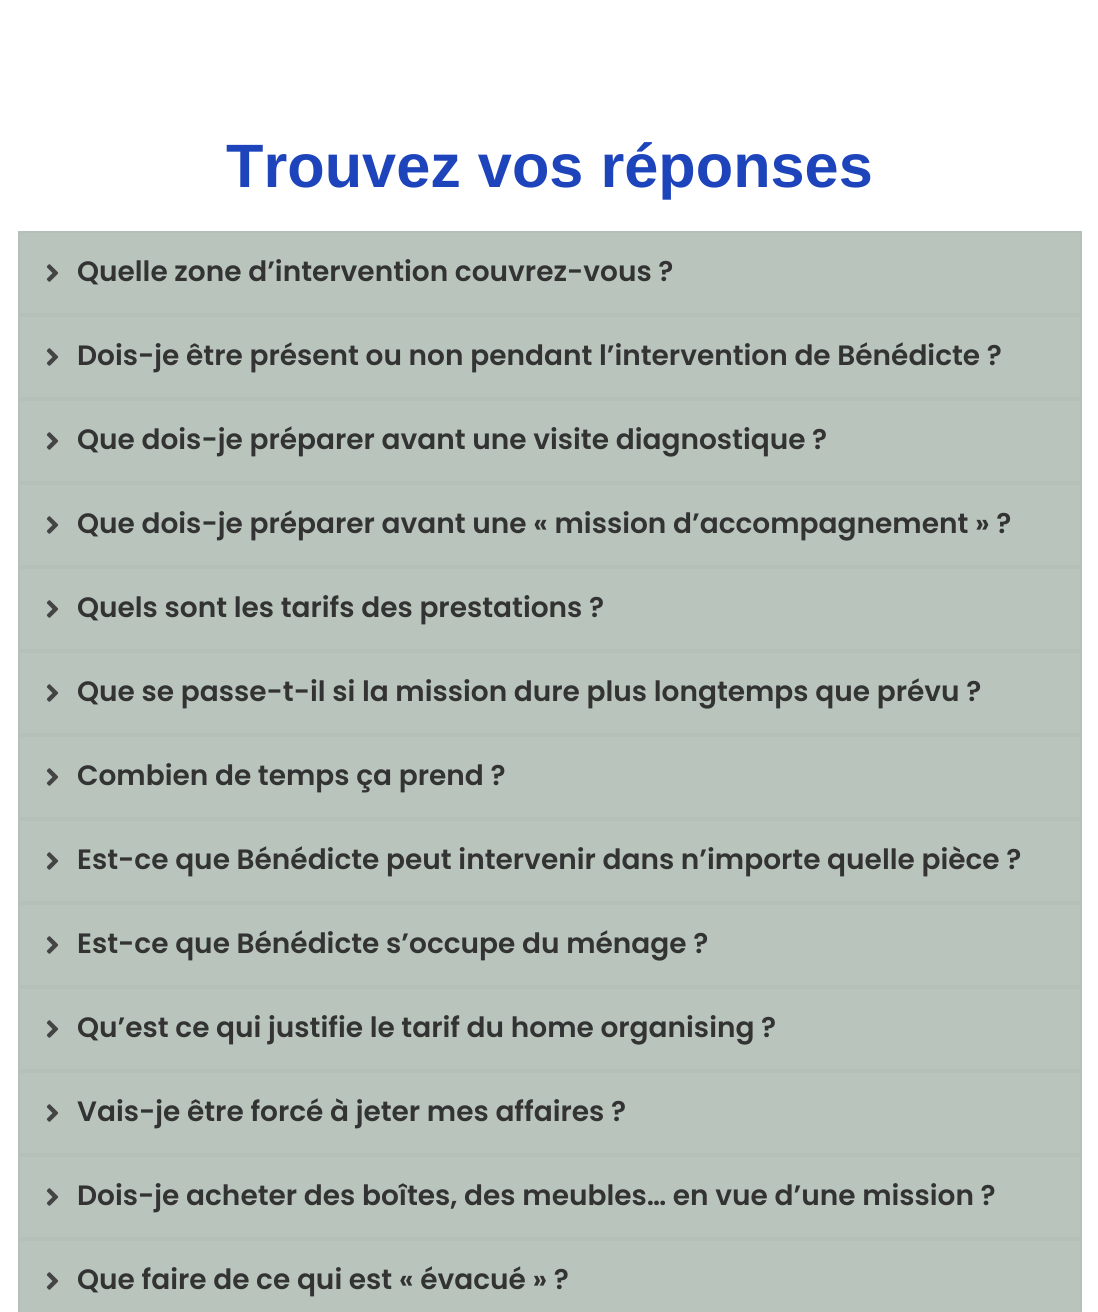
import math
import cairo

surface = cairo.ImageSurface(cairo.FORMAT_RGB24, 1098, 1312)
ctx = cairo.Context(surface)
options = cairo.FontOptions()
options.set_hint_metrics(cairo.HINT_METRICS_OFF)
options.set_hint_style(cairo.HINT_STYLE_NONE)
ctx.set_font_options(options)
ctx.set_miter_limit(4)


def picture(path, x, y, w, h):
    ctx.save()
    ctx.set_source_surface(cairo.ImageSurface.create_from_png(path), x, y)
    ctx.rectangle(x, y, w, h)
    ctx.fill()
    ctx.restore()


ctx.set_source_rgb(1, 1, 1)
ctx.paint()
ctx.select_font_face("Liberation Sans", cairo.FONT_SLANT_NORMAL, cairo.FONT_WEIGHT_BOLD)
ctx.set_font_size(61.25)
ctx.set_source_rgb(0.118, 0.267, 0.737)
ctx.move_to(226, 187)
ctx.show_text("Trouvez vos réponses")
ctx.set_source_rgb(0.725, 0.773, 0.737)
ctx.rectangle(19, 232, 1062, 82)
ctx.fill_preserve()
ctx.set_source_rgb(0.71, 0.757, 0.722)
ctx.stroke()
picture("img1.png", 46, 264, 13, 18)
ctx.select_font_face("Poppins SemiBold")
ctx.set_font_size(28)
ctx.set_source_rgb(0.2, 0.2, 0.2)
ctx.move_to(77, 281)
ctx.show_text("Quelle zone d’intervention couvrez-vous ?")
ctx.set_source_rgb(0.725, 0.773, 0.737)
ctx.rectangle(19, 316, 1062, 82)
ctx.fill_preserve()
ctx.set_source_rgb(0.71, 0.757, 0.722)
ctx.stroke()
picture("img1.png", 46, 348, 13, 18)
ctx.set_source_rgb(0.2, 0.2, 0.2)
ctx.move_to(77, 365)
ctx.show_text("Dois-je être présent ou non pendant l’intervention de Bénédicte ?")
ctx.set_source_rgb(0.725, 0.773, 0.737)
ctx.rectangle(19, 400, 1062, 82)
ctx.fill_preserve()
ctx.set_source_rgb(0.71, 0.757, 0.722)
ctx.stroke()
picture("img1.png", 46, 432, 13, 18)
ctx.set_source_rgb(0.2, 0.2, 0.2)
ctx.move_to(77, 449)
ctx.show_text("Que dois-je préparer avant une visite diagnostique ?")
ctx.set_source_rgb(0.725, 0.773, 0.737)
ctx.rectangle(19, 484, 1062, 82)
ctx.fill_preserve()
ctx.set_source_rgb(0.71, 0.757, 0.722)
ctx.stroke()
picture("img1.png", 46, 516, 13, 18)
ctx.set_source_rgb(0.2, 0.2, 0.2)
ctx.move_to(77, 533)
ctx.show_text("Que dois-je préparer avant une « mission d’accompagnement » ?")
ctx.set_source_rgb(0.725, 0.773, 0.737)
ctx.rectangle(19, 568, 1062, 82)
ctx.fill_preserve()
ctx.set_source_rgb(0.71, 0.757, 0.722)
ctx.stroke()
picture("img1.png", 46, 600, 13, 18)
ctx.set_source_rgb(0.2, 0.2, 0.2)
ctx.move_to(77, 617)
ctx.show_text("Quels sont les tarifs des prestations ?")
ctx.set_source_rgb(0.725, 0.773, 0.737)
ctx.rectangle(19, 652, 1062, 82)
ctx.fill_preserve()
ctx.set_source_rgb(0.71, 0.757, 0.722)
ctx.stroke()
picture("img1.png", 46, 684, 13, 18)
ctx.set_source_rgb(0.2, 0.2, 0.2)
ctx.move_to(77, 701)
ctx.show_text("Que se passe-t-il si la mission dure plus longtemps que prévu ?")
ctx.set_source_rgb(0.725, 0.773, 0.737)
ctx.rectangle(19, 736, 1062, 82)
ctx.fill_preserve()
ctx.set_source_rgb(0.71, 0.757, 0.722)
ctx.stroke()
picture("img1.png", 46, 768, 13, 18)
ctx.set_source_rgb(0.2, 0.2, 0.2)
ctx.move_to(77, 785)
ctx.show_text("Combien de temps ça prend ?")
ctx.set_source_rgb(0.725, 0.773, 0.737)
ctx.rectangle(19, 820, 1062, 82)
ctx.fill_preserve()
ctx.set_source_rgb(0.71, 0.757, 0.722)
ctx.stroke()
picture("img1.png", 46, 852, 13, 18)
ctx.set_source_rgb(0.2, 0.2, 0.2)
ctx.move_to(77, 869)
ctx.show_text("Est-ce que Bénédicte peut intervenir dans n’importe quelle pièce ?")
ctx.set_source_rgb(0.725, 0.773, 0.737)
ctx.rectangle(19, 904, 1062, 82)
ctx.fill_preserve()
ctx.set_source_rgb(0.71, 0.757, 0.722)
ctx.stroke()
picture("img1.png", 46, 936, 13, 18)
ctx.set_source_rgb(0.2, 0.2, 0.2)
ctx.move_to(77, 953)
ctx.show_text("Est-ce que Bénédicte s’occupe du ménage ?")
ctx.set_source_rgb(0.725, 0.773, 0.737)
ctx.rectangle(19, 988, 1062, 82)
ctx.fill_preserve()
ctx.set_source_rgb(0.71, 0.757, 0.722)
ctx.stroke()
picture("img1.png", 46, 1020, 13, 18)
ctx.set_source_rgb(0.2, 0.2, 0.2)
ctx.move_to(77, 1037)
ctx.show_text("Qu’est ce qui justifie le tarif du home organising ?")
ctx.set_source_rgb(0.725, 0.773, 0.737)
ctx.rectangle(19, 1072, 1062, 82)
ctx.fill_preserve()
ctx.set_source_rgb(0.71, 0.757, 0.722)
ctx.stroke()
picture("img1.png", 46, 1104, 13, 18)
ctx.set_source_rgb(0.2, 0.2, 0.2)
ctx.move_to(77, 1121)
ctx.show_text("Vais-je être forcé à jeter mes affaires ?")
ctx.set_source_rgb(0.725, 0.773, 0.737)
ctx.rectangle(19, 1156, 1062, 82)
ctx.fill_preserve()
ctx.set_source_rgb(0.71, 0.757, 0.722)
ctx.stroke()
picture("img1.png", 46, 1188, 13, 18)
ctx.set_source_rgb(0.2, 0.2, 0.2)
ctx.move_to(77, 1205)
ctx.show_text("Dois-je acheter des boîtes, des meubles… en vue d’une mission ?")
ctx.set_source_rgb(0.725, 0.773, 0.737)
ctx.rectangle(19, 1240, 1062, 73)
ctx.fill_preserve()
ctx.set_source_rgb(0.71, 0.757, 0.722)
ctx.stroke()
picture("img1.png", 46, 1272, 13, 18)
ctx.set_source_rgb(0.2, 0.2, 0.2)
ctx.move_to(77, 1289)
ctx.show_text("Que faire de ce qui est « évacué » ?")
surface.write_to_png("page.png")
